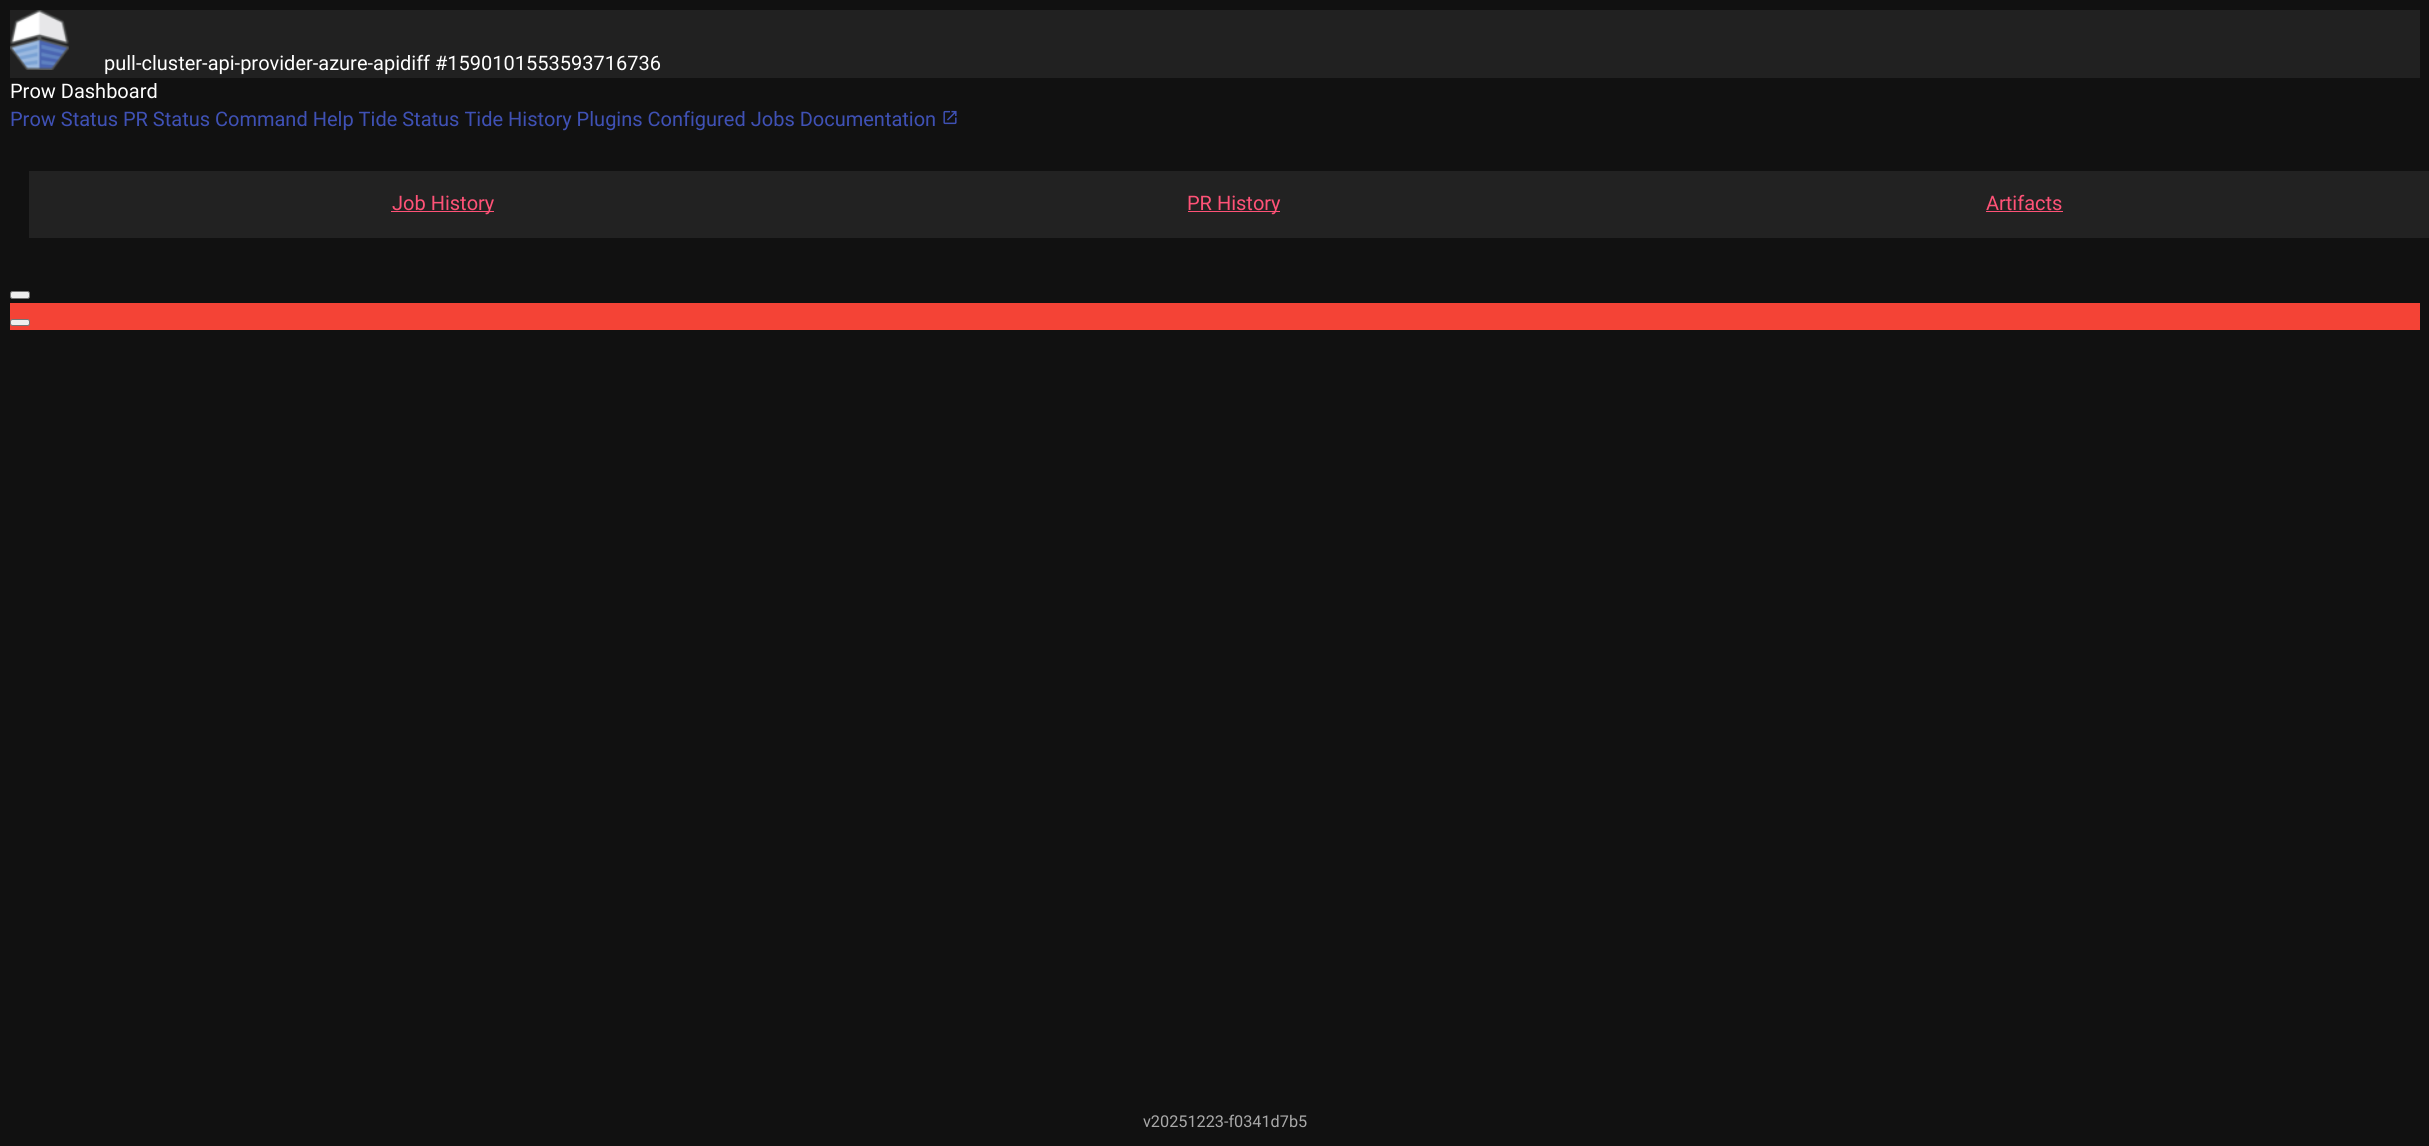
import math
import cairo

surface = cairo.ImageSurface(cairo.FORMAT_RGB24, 2429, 1146)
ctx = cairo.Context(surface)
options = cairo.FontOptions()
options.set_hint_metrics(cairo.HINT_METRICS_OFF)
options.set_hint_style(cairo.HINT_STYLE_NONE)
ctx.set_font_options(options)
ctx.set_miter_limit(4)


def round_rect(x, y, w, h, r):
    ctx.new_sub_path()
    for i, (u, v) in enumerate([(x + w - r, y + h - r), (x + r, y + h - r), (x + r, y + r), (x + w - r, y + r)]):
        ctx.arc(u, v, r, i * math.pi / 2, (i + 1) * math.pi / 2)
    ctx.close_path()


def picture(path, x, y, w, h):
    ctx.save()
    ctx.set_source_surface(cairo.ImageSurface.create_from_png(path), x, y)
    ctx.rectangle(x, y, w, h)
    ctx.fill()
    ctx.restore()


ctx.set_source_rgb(0.067, 0.067, 0.067)
ctx.paint()
ctx.set_source_rgb(0.129, 0.129, 0.129)
ctx.rectangle(10, 10, 2410, 68)
ctx.fill()
picture("img1.png", 10, 10, 59, 60)
ctx.select_font_face("Roboto")
ctx.set_font_size(20)
ctx.set_source_rgb(1, 1, 1)
ctx.move_to(104, 70)
ctx.show_text("pull-cluster-api-provider-azure-apidiff #1590101553593716736")
ctx.move_to(10, 98)
ctx.show_text("Prow Dashboard")
ctx.set_source_rgb(0.247, 0.318, 0.71)
ctx.move_to(10, 126)
ctx.show_text("Prow Status PR Status Command Help Tide Status Tide History Plugins Configured Jobs Documentation")
picture("img2.png", 943, 110, 14, 15)
ctx.set_font_size(16.25)
ctx.set_source_rgb(0.663, 0.663, 0.663)
ctx.move_to(1143, 1127)
ctx.show_text("v20251223-f0341d7b5")
ctx.set_source_rgb(0.133, 0.133, 0.133)
ctx.rectangle(29, 171, 2400, 67)
ctx.fill()
ctx.set_source_rgb(1, 0.322, 0.467)
ctx.rectangle(391, 211, 103, 1)
ctx.fill()
ctx.set_font_size(20)
ctx.move_to(392, 210)
ctx.show_text("Job History")
ctx.rectangle(1188, 211, 92, 1)
ctx.fill()
ctx.move_to(1187, 210)
ctx.show_text("PR History")
ctx.move_to(1986, 210)
ctx.show_text("Artifacts")
ctx.rectangle(1986, 211, 77, 1)
ctx.fill()
ctx.set_source_rgb(0.937, 0.937, 0.937)
round_rect(10.5, 291.5, 19, 7, 2)
ctx.fill_preserve()
ctx.set_source_rgb(0.463, 0.463, 0.463)
ctx.set_line_width(1)
ctx.stroke()
ctx.set_source_rgb(0.957, 0.263, 0.212)
ctx.rectangle(10, 303, 2410, 27)
ctx.fill()
ctx.set_source_rgb(0.937, 0.937, 0.937)
round_rect(10.5, 319.5, 19, 6, 2)
ctx.fill_preserve()
ctx.set_source_rgb(0.463, 0.463, 0.463)
ctx.stroke()
surface.write_to_png("page.png")
